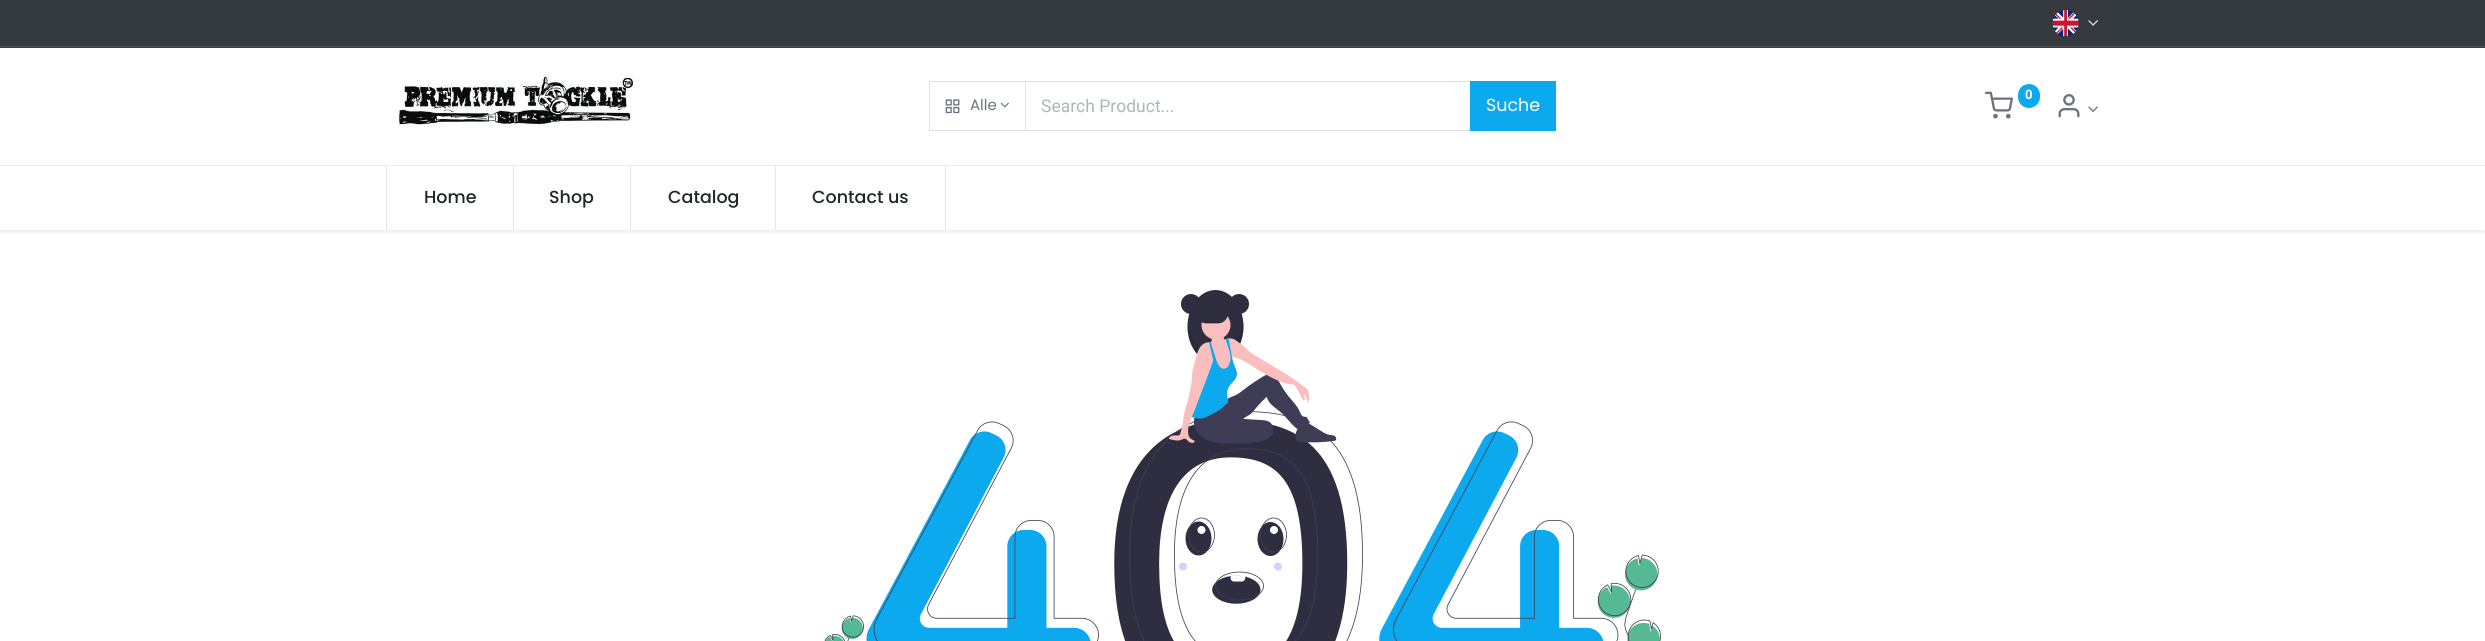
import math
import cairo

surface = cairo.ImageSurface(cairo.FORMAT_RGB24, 2485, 641)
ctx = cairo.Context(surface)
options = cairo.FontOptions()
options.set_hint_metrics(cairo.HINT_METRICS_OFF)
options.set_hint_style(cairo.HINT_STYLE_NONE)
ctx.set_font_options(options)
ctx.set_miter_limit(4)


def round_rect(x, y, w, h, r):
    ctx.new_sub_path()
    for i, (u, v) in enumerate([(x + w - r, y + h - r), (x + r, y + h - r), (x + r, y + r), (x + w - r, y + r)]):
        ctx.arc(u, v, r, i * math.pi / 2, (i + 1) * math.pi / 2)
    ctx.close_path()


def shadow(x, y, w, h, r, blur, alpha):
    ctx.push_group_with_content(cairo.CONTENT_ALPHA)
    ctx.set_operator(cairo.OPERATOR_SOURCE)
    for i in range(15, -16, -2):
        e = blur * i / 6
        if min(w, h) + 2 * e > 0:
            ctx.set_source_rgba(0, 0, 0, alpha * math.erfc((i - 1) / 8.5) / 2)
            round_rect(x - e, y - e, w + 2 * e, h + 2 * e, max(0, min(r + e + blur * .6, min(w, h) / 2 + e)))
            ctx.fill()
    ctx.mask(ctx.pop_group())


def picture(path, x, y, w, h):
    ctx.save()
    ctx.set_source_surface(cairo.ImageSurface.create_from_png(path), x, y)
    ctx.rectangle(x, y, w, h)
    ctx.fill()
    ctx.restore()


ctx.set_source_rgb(1, 1, 1)
ctx.paint()
ctx.set_source_rgb(0.204, 0.227, 0.251)
ctx.rectangle(0, 0, 2485, 48)
ctx.fill()
ctx.set_source_rgb(0.298, 0.322, 0.341)
ctx.rectangle(0, 46, 2485, 1)
ctx.fill()
picture("img1.png", 2052, 10, 27, 27)
picture("img2.png", 2088, 20, 10, 6)
ctx.set_source_rgb(0.929, 0.933, 0.937)
ctx.rectangle(0, 165, 2485, 1)
ctx.fill()
picture("img3.png", 397, 74, 237, 52)
picture("img4.png", 1985, 91, 28, 28)
ctx.set_source_rgb(0.051, 0.663, 0.937)
round_rect(2018, 84, 22, 24, 11)
ctx.fill()
ctx.select_font_face("Roboto", cairo.FONT_SLANT_NORMAL, cairo.FONT_WEIGHT_BOLD)
ctx.set_font_size(13)
ctx.set_source_rgb(1, 1, 1)
ctx.move_to(2025, 99)
ctx.show_text("0")
picture("img5.png", 2058, 94, 22, 24)
picture("img6.png", 2088, 106, 10, 6)
ctx.rectangle(1025.5, 81.5, 445, 49)
ctx.set_source_rgb(0.871, 0.886, 0.902)
ctx.set_line_width(1)
ctx.stroke()
ctx.rectangle(929.5, 81.5, 96, 49)
ctx.stroke()
picture("img7.png", 945, 99, 15, 15)
ctx.select_font_face("Poppins")
ctx.set_font_size(15)
ctx.set_source_rgb(0.424, 0.459, 0.49)
ctx.move_to(970, 110)
ctx.show_text("Alle")
picture("img8.png", 1000, 102, 9, 6)
ctx.select_font_face("Roboto")
ctx.set_font_size(17.5)
ctx.set_source_rgb(0.678, 0.71, 0.741)
ctx.move_to(1041, 112)
ctx.show_text("Search Product...")
ctx.set_source_rgb(0.051, 0.663, 0.937)
ctx.rectangle(1470, 81, 86, 50)
ctx.fill()
ctx.select_font_face("Poppins")
ctx.set_source_rgb(1, 1, 1)
ctx.move_to(1486, 111)
ctx.show_text("Suche")
ctx.save()
ctx.rectangle(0, 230, 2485, 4)
ctx.clip()
ctx.set_source_rgb(0, 0, 0)
shadow(0, 169, 2485, 64, 0, 2.5, 0.07)
ctx.restore()
ctx.set_source_rgb(0.894, 0.898, 0.898)
ctx.rectangle(386, 166, 1, 64)
ctx.fill()
ctx.select_font_face("Poppins Medium")
ctx.set_source_rgb(0.129, 0.145, 0.161)
ctx.move_to(424, 203)
ctx.show_text("Home")
ctx.set_source_rgb(0.894, 0.898, 0.898)
ctx.rectangle(513, 166, 1, 64)
ctx.fill()
ctx.set_source_rgb(0.129, 0.145, 0.161)
ctx.move_to(549, 203)
ctx.show_text("Shop")
ctx.set_source_rgb(0.894, 0.898, 0.898)
ctx.rectangle(630, 166, 1, 64)
ctx.fill()
ctx.set_source_rgb(0.129, 0.145, 0.161)
ctx.move_to(668, 203)
ctx.show_text("Catalog")
ctx.set_source_rgb(0.894, 0.898, 0.898)
ctx.rectangle(945, 166, 1, 64)
ctx.fill()
ctx.rectangle(775, 166, 1, 64)
ctx.fill()
ctx.set_source_rgb(0.129, 0.145, 0.161)
ctx.move_to(812, 203)
ctx.show_text("Contact us")
picture("img9.png", 824, 290, 837, 351)
surface.write_to_png("page.png")
